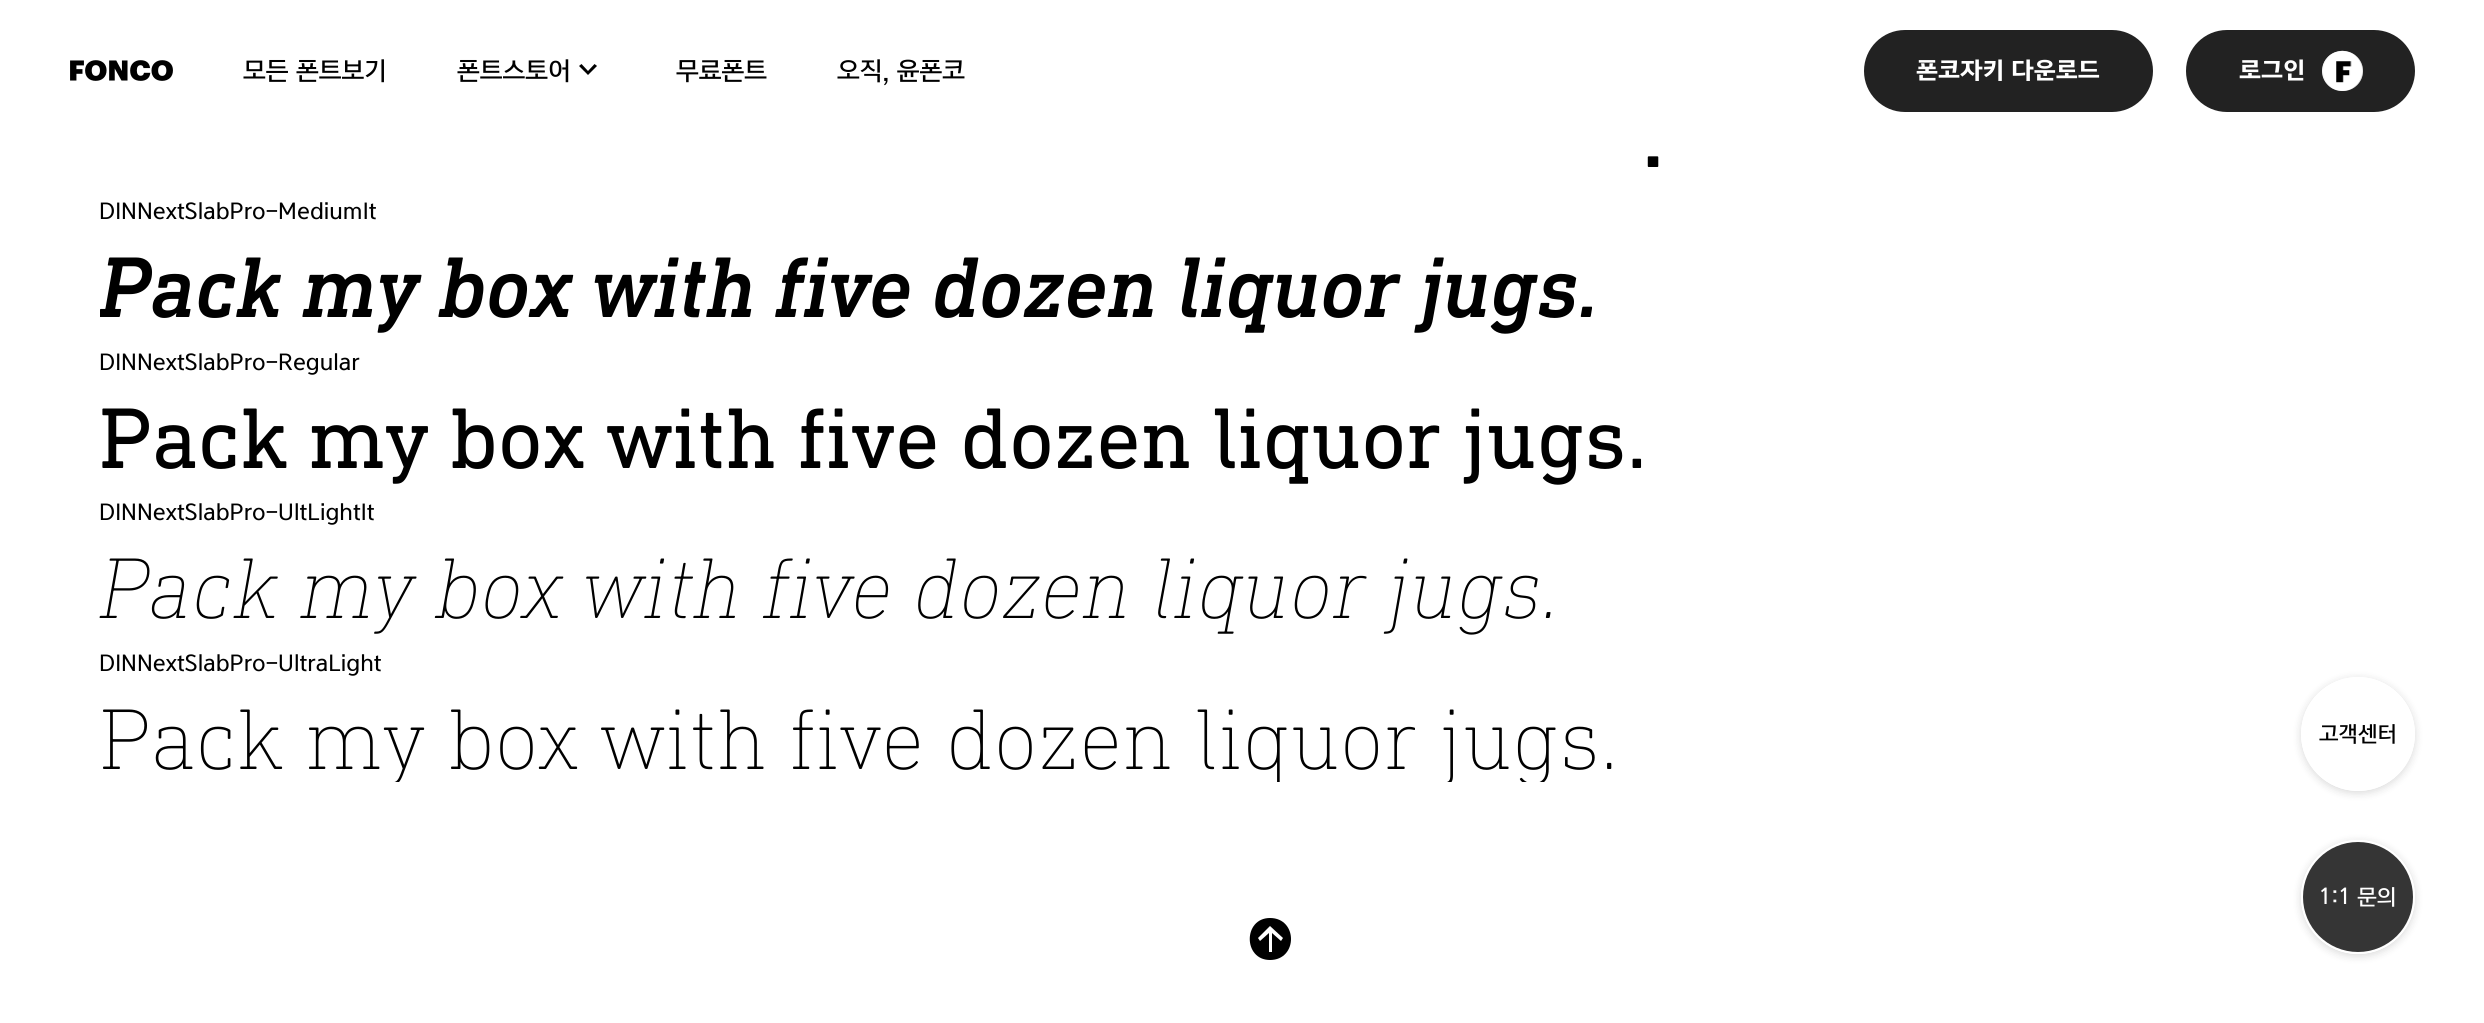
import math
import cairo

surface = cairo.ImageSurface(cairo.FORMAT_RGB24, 2484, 1023)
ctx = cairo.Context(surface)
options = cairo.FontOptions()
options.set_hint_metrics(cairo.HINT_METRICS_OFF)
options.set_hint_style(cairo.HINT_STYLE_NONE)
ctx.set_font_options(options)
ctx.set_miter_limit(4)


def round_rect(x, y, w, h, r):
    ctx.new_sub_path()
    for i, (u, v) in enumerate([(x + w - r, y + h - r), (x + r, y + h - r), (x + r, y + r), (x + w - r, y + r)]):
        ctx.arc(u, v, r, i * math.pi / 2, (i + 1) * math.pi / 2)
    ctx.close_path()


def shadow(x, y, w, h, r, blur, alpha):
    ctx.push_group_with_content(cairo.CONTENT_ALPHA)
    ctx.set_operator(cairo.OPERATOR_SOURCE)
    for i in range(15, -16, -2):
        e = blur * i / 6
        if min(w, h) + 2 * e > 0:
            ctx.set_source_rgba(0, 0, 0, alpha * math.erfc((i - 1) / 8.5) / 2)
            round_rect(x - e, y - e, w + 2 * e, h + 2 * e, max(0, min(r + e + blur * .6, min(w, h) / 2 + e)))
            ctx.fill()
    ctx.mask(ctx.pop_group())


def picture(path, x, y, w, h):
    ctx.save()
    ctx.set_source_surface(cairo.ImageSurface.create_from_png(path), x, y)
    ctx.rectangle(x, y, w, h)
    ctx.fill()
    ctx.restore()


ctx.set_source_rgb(1, 1, 1)
ctx.paint()
picture("img1.png", 70, 60, 103, 21)
ctx.select_font_face("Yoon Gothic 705 Medium")
ctx.set_font_size(24.5)
ctx.set_source_rgb(0, 0, 0)
ctx.move_to(243, 79)
ctx.show_text("모든 폰트보기")
ctx.move_to(457, 79)
ctx.show_text("폰트스토어")
ctx.new_path()
ctx.move_to(588, 75)
ctx.line_to(579, 66)
ctx.line_to(581.5, 64)
ctx.line_to(588, 71)
ctx.line_to(594.5, 64)
ctx.line_to(597, 66)
ctx.close_path()
ctx.fill()
ctx.move_to(676, 79)
ctx.show_text("무료폰트")
ctx.move_to(837, 79)
ctx.show_text("오직, 윤폰코")
ctx.set_source_rgb(0.133, 0.133, 0.133)
round_rect(1864, 30, 289, 82, 41)
ctx.fill()
ctx.select_font_face("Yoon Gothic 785", cairo.FONT_SLANT_NORMAL, cairo.FONT_WEIGHT_BOLD)
ctx.set_font_size(22.75)
ctx.set_source_rgb(1, 1, 1)
ctx.move_to(1916, 78)
ctx.show_text("폰코자키 다운로드")
ctx.set_source_rgb(0.133, 0.133, 0.133)
round_rect(2186, 30, 229, 82, 41)
ctx.fill()
ctx.set_source_rgb(1, 1, 1)
ctx.move_to(2239, 78)
ctx.show_text("로그인")
ctx.set_source_rgb(0.851, 0.851, 0.851)
round_rect(2322, 51, 41, 40, 20)
ctx.fill()
picture("img2.png", 2322, 50, 41, 41)
ctx.select_font_face("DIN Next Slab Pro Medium")
ctx.set_font_size(87.5)
ctx.set_source_rgb(0, 0, 0)
ctx.move_to(1642, 167)
ctx.show_text(".")
ctx.select_font_face("Yoon Gothic 705 Medium")
ctx.set_font_size(21)
ctx.move_to(99, 219)
ctx.show_text("DINNextSlabPro-MediumIt")
ctx.save()
ctx.rectangle(100, 0, 2285, 782)
ctx.clip()
ctx.select_font_face("DIN Next Slab Pro Medium", cairo.FONT_SLANT_ITALIC)
ctx.set_font_size(87.5)
ctx.move_to(99, 317)
ctx.show_text("Pack my box with five dozen liquor jugs.")
ctx.restore()
ctx.move_to(99, 370)
ctx.show_text("DINNextSlabPro-Regular")
ctx.select_font_face("DIN Next Slab Pro")
ctx.set_font_size(87.5)
ctx.move_to(99, 468)
ctx.show_text("Pack my box with five dozen liquor jugs.")
ctx.select_font_face("Yoon Gothic 705 Medium")
ctx.set_font_size(21)
ctx.move_to(99, 520)
ctx.show_text("DINNextSlabPro-UltLightIt")
ctx.select_font_face("DIN Next Slab Pro Light", cairo.FONT_SLANT_ITALIC)
ctx.set_font_size(87.5)
ctx.move_to(99, 618)
ctx.show_text("Pack my box with five dozen liquor jugs.")
ctx.select_font_face("Yoon Gothic 705 Medium")
ctx.set_font_size(21)
ctx.move_to(99, 671)
ctx.show_text("DINNextSlabPro-UltraLight")
ctx.save()
ctx.rectangle(100, 0, 2285, 782)
ctx.clip()
ctx.select_font_face("DIN Next Slab Pro ExtraLight")
ctx.set_font_size(87.5)
ctx.move_to(99, 769)
ctx.show_text("Pack my box with five dozen liquor jugs.")
ctx.restore()
ctx.save()
ctx.set_fill_rule(cairo.FILL_RULE_EVEN_ODD)
ctx.new_path()
ctx.move_to(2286, 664)
ctx.line_to(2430, 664)
ctx.line_to(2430, 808)
ctx.line_to(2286, 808)
ctx.close_path()
ctx.move_to(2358, 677)
ctx.curve_to(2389.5, 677, 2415, 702.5, 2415, 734)
ctx.curve_to(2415, 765.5, 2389.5, 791, 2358, 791)
ctx.curve_to(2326.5, 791, 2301, 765.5, 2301, 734)
ctx.curve_to(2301, 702.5, 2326.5, 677, 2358, 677)
ctx.close_path()
ctx.clip()
ctx.set_source_rgb(0, 0, 0)
shadow(2301, 679, 114, 114, 57, 4.5, 0.15)
ctx.restore()
ctx.set_source_rgba(1, 1, 1, 0.79)
ctx.arc(2358, 734, 57, 0, 2 * math.pi)
ctx.fill()
ctx.set_source_rgb(0, 0, 0)
ctx.move_to(2319, 741)
ctx.show_text("고객센터")
ctx.save()
ctx.set_fill_rule(cairo.FILL_RULE_EVEN_ODD)
ctx.new_path()
ctx.move_to(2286, 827)
ctx.line_to(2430, 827)
ctx.line_to(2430, 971)
ctx.line_to(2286, 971)
ctx.close_path()
ctx.move_to(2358, 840)
ctx.curve_to(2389.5, 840, 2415, 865.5, 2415, 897)
ctx.curve_to(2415, 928.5, 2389.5, 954, 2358, 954)
ctx.curve_to(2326.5, 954, 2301, 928.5, 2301, 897)
ctx.curve_to(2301, 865.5, 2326.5, 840, 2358, 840)
ctx.close_path()
ctx.clip()
ctx.set_source_rgb(0, 0, 0)
shadow(2301, 842, 114, 114, 57, 4.5, 0.15)
ctx.restore()
ctx.set_source_rgba(0, 0, 0, 0.79)
ctx.arc(2358, 897, 56, 0, 2 * math.pi)
ctx.fill_preserve()
ctx.set_source_rgb(1, 1, 1)
ctx.stroke()
ctx.move_to(2319, 904)
ctx.show_text("1:1 문의")
ctx.set_source_rgb(0, 0, 0)
ctx.new_path()
ctx.move_to(1270, 918)
ctx.curve_to(1298, 918, 1298, 960, 1270, 960)
ctx.curve_to(1243, 960, 1243, 918, 1270, 918)
ctx.close_path()
ctx.move_to(1270, 926)
ctx.line_to(1258, 938)
ctx.line_to(1260, 941)
ctx.line_to(1269, 933)
ctx.line_to(1269, 952)
ctx.line_to(1272, 952)
ctx.line_to(1272, 933)
ctx.line_to(1281, 941)
ctx.line_to(1283, 938)
ctx.close_path()
ctx.fill()
surface.write_to_png("page.png")
